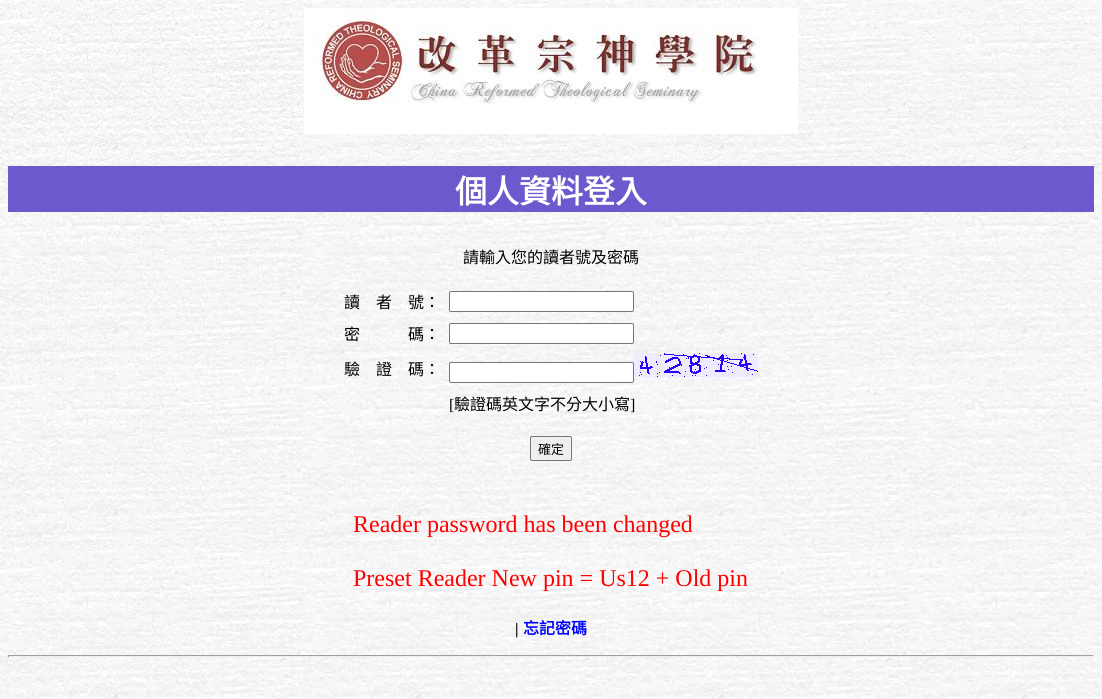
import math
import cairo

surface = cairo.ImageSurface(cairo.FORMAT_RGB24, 1102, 699)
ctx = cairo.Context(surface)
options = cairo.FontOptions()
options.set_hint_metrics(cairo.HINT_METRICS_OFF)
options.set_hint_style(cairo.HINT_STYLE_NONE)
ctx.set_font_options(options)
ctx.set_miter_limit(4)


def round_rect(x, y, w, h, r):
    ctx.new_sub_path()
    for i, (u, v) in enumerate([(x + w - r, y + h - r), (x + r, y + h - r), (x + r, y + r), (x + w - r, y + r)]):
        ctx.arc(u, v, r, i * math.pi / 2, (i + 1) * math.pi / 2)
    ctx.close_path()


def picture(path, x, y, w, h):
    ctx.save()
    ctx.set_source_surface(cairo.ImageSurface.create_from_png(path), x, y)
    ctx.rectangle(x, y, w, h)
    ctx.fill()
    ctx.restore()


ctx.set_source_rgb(1, 1, 1)
ctx.paint()
picture("img1.png", 0, 0, 1102, 699)
picture("img2.png", 304, 8, 494, 126)
ctx.set_source_rgb(0.416, 0.353, 0.804)
ctx.rectangle(8, 166, 1086, 46)
ctx.fill()
ctx.select_font_face("Noto Sans CJK TC", cairo.FONT_SLANT_NORMAL, cairo.FONT_WEIGHT_BOLD)
ctx.set_font_size(32)
ctx.set_source_rgb(1, 1, 1)
ctx.move_to(455, 203)
ctx.show_text("個人資料登入")
ctx.select_font_face("Noto Sans CJK TC")
ctx.set_font_size(16)
ctx.set_source_rgb(0, 0, 0)
ctx.move_to(463, 263)
ctx.show_text("請輸入您的讀者號及密碼")
ctx.move_to(344, 308)
ctx.show_text("讀　者　號：")
ctx.set_source_rgb(1, 1, 1)
round_rect(449.5, 291.5, 184, 20, 1.5)
ctx.fill_preserve()
ctx.set_source_rgb(0.463, 0.463, 0.463)
ctx.set_line_width(1)
ctx.stroke()
ctx.set_source_rgb(0, 0, 0)
ctx.move_to(344, 340)
ctx.show_text("密　　　碼：")
ctx.set_source_rgb(1, 1, 1)
round_rect(449.5, 323.5, 184, 20, 1.5)
ctx.fill_preserve()
ctx.set_source_rgb(0.463, 0.463, 0.463)
ctx.stroke()
ctx.set_source_rgb(0, 0, 0)
ctx.move_to(344, 375)
ctx.show_text("驗　證　碼：")
ctx.set_source_rgb(1, 1, 1)
round_rect(449.5, 362.5, 184, 20, 1.5)
ctx.fill_preserve()
ctx.set_source_rgb(0.463, 0.463, 0.463)
ctx.stroke()
picture("img3.png", 634, 353, 124, 24)
ctx.select_font_face("Liberation Serif")
ctx.set_source_rgb(0, 0, 0)
ctx.move_to(449, 410)
ctx.show_text("[")
ctx.select_font_face("Noto Sans CJK TC")
ctx.move_to(454, 410)
ctx.show_text("驗證碼英文字不分大小寫")
ctx.select_font_face("Liberation Serif")
ctx.move_to(630, 410)
ctx.show_text("]")
ctx.set_source_rgb(0.937, 0.937, 0.937)
round_rect(530.5, 436.5, 41, 24, 1.5)
ctx.fill_preserve()
ctx.set_source_rgb(0.463, 0.463, 0.463)
ctx.stroke()
ctx.select_font_face("Noto Sans CJK TC")
ctx.set_font_size(13)
ctx.set_source_rgb(0, 0, 0)
ctx.move_to(538, 454)
ctx.show_text("確定")
ctx.select_font_face("Liberation Serif")
ctx.set_font_size(24)
ctx.set_source_rgb(1, 0, 0)
ctx.move_to(353, 532)
ctx.show_text("Reader password has been changed")
ctx.move_to(353, 586)
ctx.show_text("Preset Reader New pin = Us12 + Old pin")
ctx.select_font_face("Liberation Serif", cairo.FONT_SLANT_NORMAL, cairo.FONT_WEIGHT_BOLD)
ctx.set_font_size(16)
ctx.set_source_rgb(0, 0, 0)
ctx.move_to(515, 634)
ctx.show_text("|")
ctx.select_font_face("Noto Sans CJK TC", cairo.FONT_SLANT_NORMAL, cairo.FONT_WEIGHT_BOLD)
ctx.set_source_rgb(0, 0, 1)
ctx.move_to(523, 634)
ctx.show_text("忘記密碼")
ctx.set_source_rgb(0.624, 0.624, 0.624)
ctx.rectangle(8, 655, 1086, 1)
ctx.fill()
ctx.set_source_rgb(0.933, 0.933, 0.933)
ctx.rectangle(1093, 655, 1, 2)
ctx.fill()
ctx.rectangle(8, 656, 1086, 1)
ctx.fill()
ctx.set_source_rgb(0.624, 0.624, 0.624)
ctx.rectangle(8, 655, 1, 2)
ctx.fill()
surface.write_to_png("page.png")
